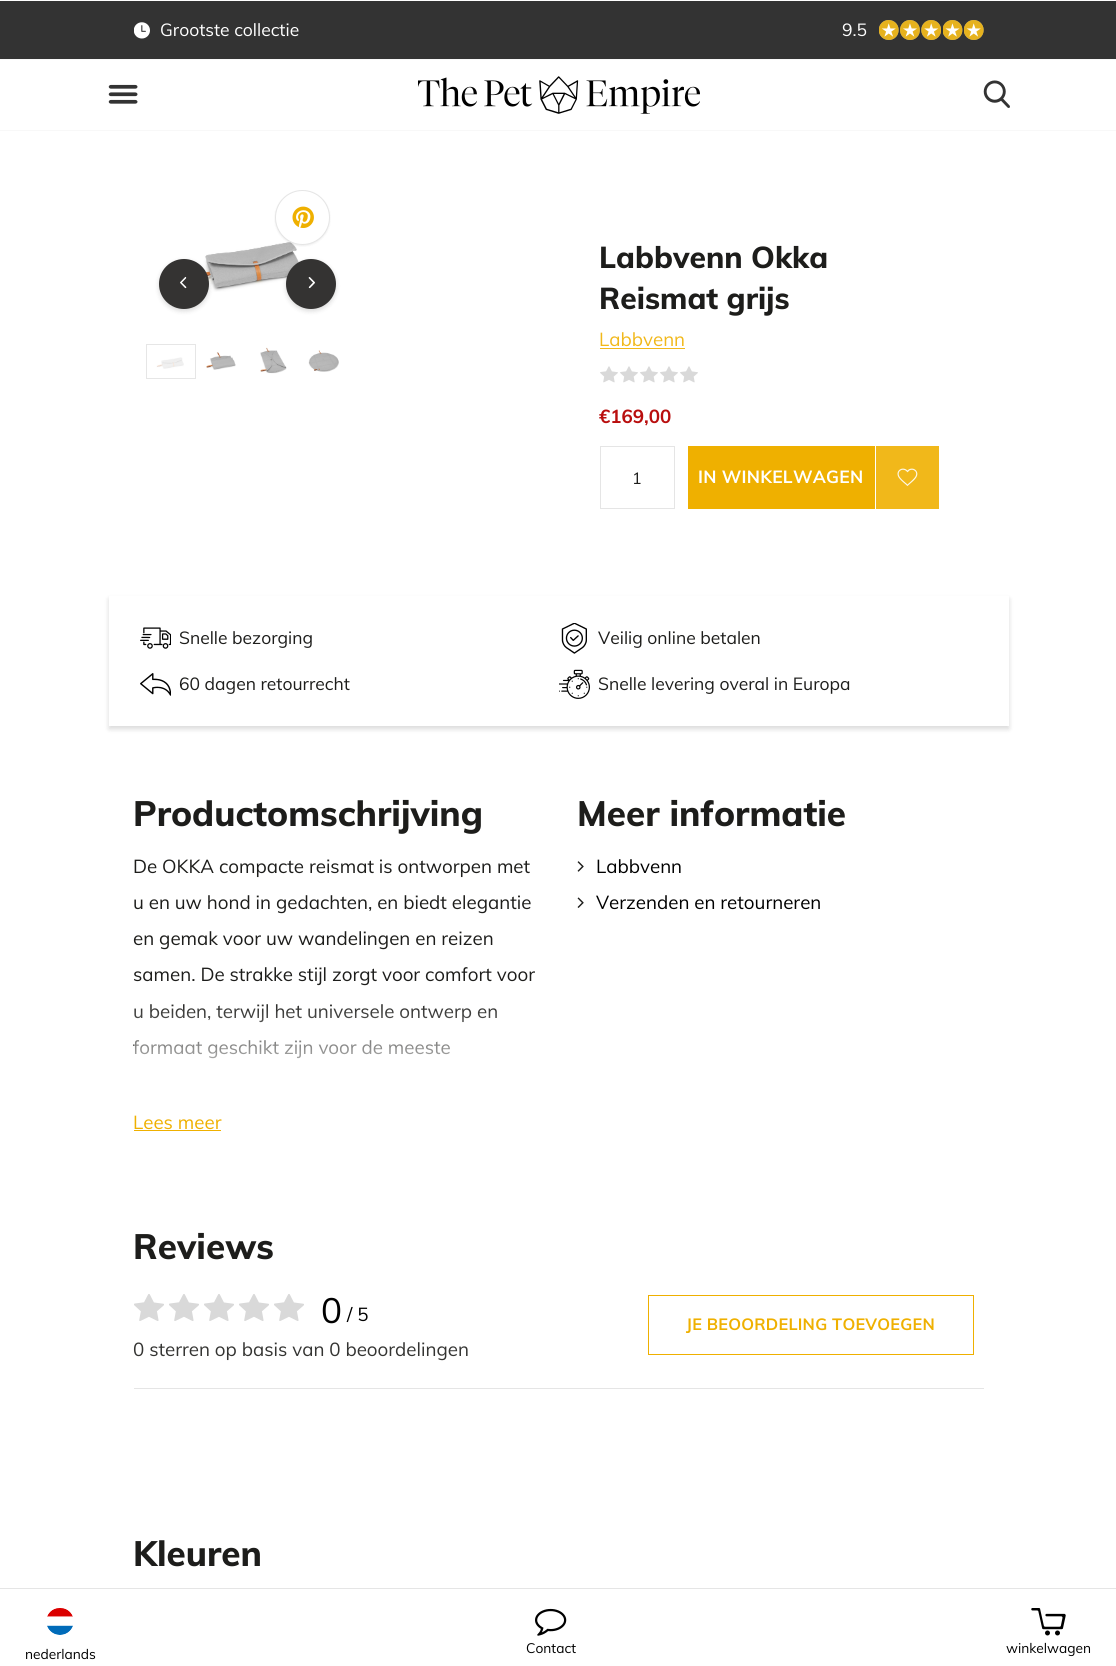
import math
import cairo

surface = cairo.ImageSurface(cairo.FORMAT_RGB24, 1116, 1666)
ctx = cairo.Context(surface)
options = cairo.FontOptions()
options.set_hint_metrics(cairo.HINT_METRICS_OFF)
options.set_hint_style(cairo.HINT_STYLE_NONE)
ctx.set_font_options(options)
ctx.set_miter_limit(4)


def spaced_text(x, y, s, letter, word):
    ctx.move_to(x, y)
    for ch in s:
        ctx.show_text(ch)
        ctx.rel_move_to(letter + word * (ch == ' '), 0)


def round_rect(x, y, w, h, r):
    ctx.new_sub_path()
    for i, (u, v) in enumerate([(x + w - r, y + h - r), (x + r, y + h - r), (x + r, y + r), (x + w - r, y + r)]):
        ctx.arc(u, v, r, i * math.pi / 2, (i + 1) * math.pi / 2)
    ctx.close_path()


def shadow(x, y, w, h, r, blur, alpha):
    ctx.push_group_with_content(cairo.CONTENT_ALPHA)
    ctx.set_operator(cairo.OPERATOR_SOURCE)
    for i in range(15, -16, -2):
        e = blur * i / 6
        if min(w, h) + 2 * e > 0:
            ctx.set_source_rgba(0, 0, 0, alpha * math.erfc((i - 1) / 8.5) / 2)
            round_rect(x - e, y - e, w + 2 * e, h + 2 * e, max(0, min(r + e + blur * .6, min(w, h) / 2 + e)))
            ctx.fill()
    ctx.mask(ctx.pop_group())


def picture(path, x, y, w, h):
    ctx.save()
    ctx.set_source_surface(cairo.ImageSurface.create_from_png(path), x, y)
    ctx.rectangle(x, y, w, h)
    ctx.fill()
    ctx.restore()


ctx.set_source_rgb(1, 1, 1)
ctx.paint()
ctx.set_source_rgb(0.2, 0.2, 0.2)
ctx.rectangle(0, 1, 1116, 58)
ctx.fill()
ctx.set_source_rgb(0.969, 0.969, 0.969)
ctx.rectangle(0, 59, 1116, 1)
ctx.fill()
picture("img1.png", 134, 22, 16, 17)
ctx.select_font_face("Muli")
ctx.set_font_size(17.5)
ctx.set_source_rgb(1, 1, 1)
ctx.move_to(160, 36)
ctx.show_text("Grootste collectie")
ctx.move_to(842, 36)
ctx.show_text("9.5")
picture("img2.png", 879, 20, 20, 20)
picture("img3.png", 879, 20, 20, 20)
picture("img4.png", 900, 20, 20, 20)
picture("img5.png", 900, 20, 20, 20)
picture("img6.png", 921, 20, 20, 20)
picture("img7.png", 921, 20, 20, 20)
picture("img8.png", 943, 20, 20, 20)
picture("img9.png", 943, 20, 20, 20)
picture("img2.png", 964, 20, 20, 20)
picture("img3.png", 964, 20, 20, 20)
picture("img10.png", 108, 84, 30, 20)
picture("img11.png", 418, 76, 282, 38)
picture("img12.png", 983, 80, 27, 28)
ctx.set_source_rgb(0.969, 0.969, 0.969)
ctx.rectangle(0, 130, 1116, 1)
ctx.fill()
picture("img14.png", 185, 242, 118, 50)
ctx.set_source_rgb(0, 0, 0)
shadow(275, 191, 55, 55, 27.5, 1, 0.07)
ctx.set_source_rgb(1, 1, 1)
ctx.arc(302.5, 217.5, 27, 0, 2 * math.pi)
ctx.fill_preserve()
ctx.set_source_rgb(0.898, 0.898, 0.898)
ctx.set_line_width(1)
ctx.stroke()
picture("img13.png", 292, 206, 22, 22)
ctx.set_source_rgb(0, 0, 0)
shadow(159, 261, 50, 50, 25, 2.5, 0.15)
ctx.set_source_rgb(0.204, 0.2, 0.196)
ctx.arc(184, 284, 25, 0, 2 * math.pi)
ctx.fill()
picture("img15.png", 180, 276, 7, 13)
ctx.set_source_rgb(0, 0, 0)
shadow(286, 261, 50, 50, 25, 2.5, 0.15)
ctx.set_source_rgb(0.204, 0.2, 0.196)
ctx.arc(311, 284, 25, 0, 2 * math.pi)
ctx.fill()
picture("img16.png", 308, 277, 7, 12)
ctx.rectangle(146.5, 344.5, 49, 34)
ctx.set_source_rgb(0.902, 0.902, 0.902)
ctx.stroke()
picture("img17.png", 156, 357, 28, 12)
picture("img18.png", 206, 352, 30, 18)
picture("img19.png", 260, 347, 27, 27)
picture("img20.png", 308, 350, 31, 22)
ctx.select_font_face("Muli ExtraBold")
ctx.set_font_size(30)
ctx.set_source_rgb(0.114, 0.114, 0.106)
ctx.move_to(599, 268)
ctx.show_text("Labbvenn Okka")
ctx.move_to(599, 309)
ctx.show_text("Reismat grijs")
ctx.select_font_face("Muli")
ctx.set_font_size(18.75)
ctx.set_source_rgb(0.945, 0.722, 0.102)
ctx.move_to(599, 346)
ctx.show_text("Labbvenn")
ctx.rectangle(600, 348, 85, 1)
ctx.fill()
picture("img21.png", 600, 366, 18, 17)
picture("img21.png", 620, 366, 18, 17)
picture("img21.png", 640, 366, 18, 17)
picture("img21.png", 660, 366, 18, 17)
picture("img21.png", 680, 366, 18, 17)
ctx.select_font_face("Muli", cairo.FONT_SLANT_NORMAL, cairo.FONT_WEIGHT_BOLD)
ctx.set_source_rgb(0.725, 0.055, 0.055)
ctx.move_to(599, 423)
ctx.show_text("€169,00")
ctx.rectangle(600.5, 446.5, 74, 62)
ctx.set_source_rgb(0.898, 0.898, 0.898)
ctx.stroke()
ctx.select_font_face("Muli")
ctx.set_font_size(16.25)
ctx.set_source_rgb(0.114, 0.114, 0.106)
ctx.move_to(632, 484)
ctx.show_text("1")
ctx.set_source_rgb(0.937, 0.69, 0)
ctx.rectangle(688, 446, 187, 63)
ctx.fill()
ctx.select_font_face("Muli", cairo.FONT_SLANT_NORMAL, cairo.FONT_WEIGHT_BOLD)
ctx.set_font_size(17.5)
ctx.set_source_rgb(1, 1, 1)
spaced_text(698, 483, "IN WINKELWAGEN", 0.25, 0)
ctx.set_source_rgb(0.945, 0.722, 0.102)
ctx.rectangle(876, 446, 63, 63)
ctx.fill()
picture("img22.png", 897, 468, 21, 18)
ctx.set_source_rgb(0, 0, 0)
shadow(109, 599, 900, 130, 0, 2.5, 0.15)
ctx.set_source_rgb(1, 1, 1)
ctx.rectangle(109, 596, 900, 130)
ctx.fill()
picture("img23.png", 140, 627, 31, 22)
ctx.select_font_face("Muli")
ctx.set_source_rgb(0.114, 0.114, 0.106)
ctx.move_to(179, 644)
ctx.show_text("Snelle bezorging")
picture("img24.png", 561, 623, 26, 31)
ctx.move_to(598, 644)
ctx.show_text("Veilig online betalen")
picture("img25.png", 140, 673, 31, 23)
ctx.move_to(179, 690)
ctx.show_text("60 dagen retourrecht")
picture("img26.png", 559, 669, 31, 30)
ctx.move_to(598, 690)
ctx.show_text("Snelle levering overal in Europa")
ctx.select_font_face("Muli ExtraBold")
ctx.set_font_size(35)
ctx.move_to(133, 826)
ctx.show_text("Productomschrijving")
ctx.select_font_face("Muli")
ctx.set_font_size(18.75)
ctx.move_to(133, 873)
ctx.show_text("De OKKA compacte reismat is ontworpen met")
ctx.move_to(133, 909)
ctx.show_text("u en uw hond in gedachten, en biedt elegantie")
ctx.move_to(133, 945)
ctx.show_text("en gemak voor uw wandelingen en reizen")
ctx.move_to(133, 981)
ctx.show_text("samen. De strakke stijl zorgt voor comfort voor")
ctx.move_to(133, 1018)
ctx.show_text("u beiden, terwijl het universele ontwerp en")
ctx.move_to(133, 1054)
ctx.show_text("formaat geschikt zijn voor de meeste")
gradient = cairo.LinearGradient(337, 998, 337, 1098)
gradient.add_color_stop_rgba(0, 1, 1, 1, 0)
gradient.add_color_stop_rgba(1, 1, 1, 1, 1)
ctx.set_source(gradient)
ctx.rectangle(134, 1004, 363, 55)
ctx.fill()
ctx.set_source_rgb(0.937, 0.69, 0)
ctx.move_to(133, 1129)
ctx.show_text("Lees meer")
ctx.rectangle(134, 1130, 87, 1)
ctx.fill()
ctx.select_font_face("Muli ExtraBold")
ctx.set_font_size(35)
ctx.set_source_rgb(0.114, 0.114, 0.106)
ctx.move_to(577, 826)
ctx.show_text("Meer informatie")
picture("img27.png", 577, 861, 7, 11)
ctx.select_font_face("Muli")
ctx.set_font_size(18.75)
ctx.set_source_rgb(0, 0, 0)
ctx.move_to(596, 873)
ctx.show_text("Labbvenn")
picture("img28.png", 577, 897, 7, 11)
ctx.move_to(596, 909)
ctx.show_text("Verzenden en retourneren")
ctx.select_font_face("Muli ExtraBold")
ctx.set_font_size(35)
ctx.set_source_rgb(0.114, 0.114, 0.106)
ctx.move_to(133, 1259)
ctx.show_text("Reviews")
picture("img29.png", 134, 1294, 30, 27)
picture("img29.png", 169, 1294, 30, 27)
picture("img29.png", 204, 1294, 30, 27)
picture("img29.png", 239, 1294, 30, 27)
picture("img29.png", 274, 1294, 30, 27)
ctx.select_font_face("Muli")
ctx.set_source_rgb(0, 0, 0)
ctx.move_to(321, 1323)
ctx.show_text("0")
ctx.set_font_size(18.75)
ctx.move_to(347, 1321)
ctx.show_text("/ 5")
ctx.rectangle(648.5, 1295.5, 325, 59)
ctx.set_source_rgb(0.937, 0.69, 0)
ctx.stroke()
ctx.select_font_face("Muli", cairo.FONT_SLANT_NORMAL, cairo.FONT_WEIGHT_BOLD)
ctx.set_font_size(16.25)
spaced_text(686, 1330, "JE BEOORDELING TOEVOEGEN", 0.25, 0)
ctx.select_font_face("Muli")
ctx.set_font_size(18.75)
ctx.set_source_rgb(0.204, 0.204, 0.196)
ctx.move_to(133, 1356)
ctx.show_text("0 sterren op basis van 0 beoordelingen")
ctx.set_source_rgb(0.898, 0.898, 0.898)
ctx.rectangle(134, 1388, 850, 1)
ctx.fill()
ctx.select_font_face("Muli ExtraBold")
ctx.set_font_size(35)
ctx.set_source_rgb(0.114, 0.114, 0.106)
ctx.move_to(133, 1566)
ctx.show_text("Kleuren")
ctx.set_source_rgb(0.898, 0.898, 0.898)
ctx.rectangle(0, 1588, 1116, 1)
ctx.fill()
picture("img30.png", 47, 1608, 26, 27)
ctx.select_font_face("Muli")
ctx.set_font_size(13.75)
ctx.set_source_rgb(0, 0, 0)
ctx.move_to(25, 1659)
ctx.show_text("nederlands")
picture("img31.png", 535, 1608, 32, 28)
ctx.move_to(526, 1653)
ctx.show_text("Contact")
picture("img32.png", 1031, 1608, 35, 28)
ctx.move_to(1006, 1653)
ctx.show_text("winkelwagen")
surface.write_to_png("page.png")
